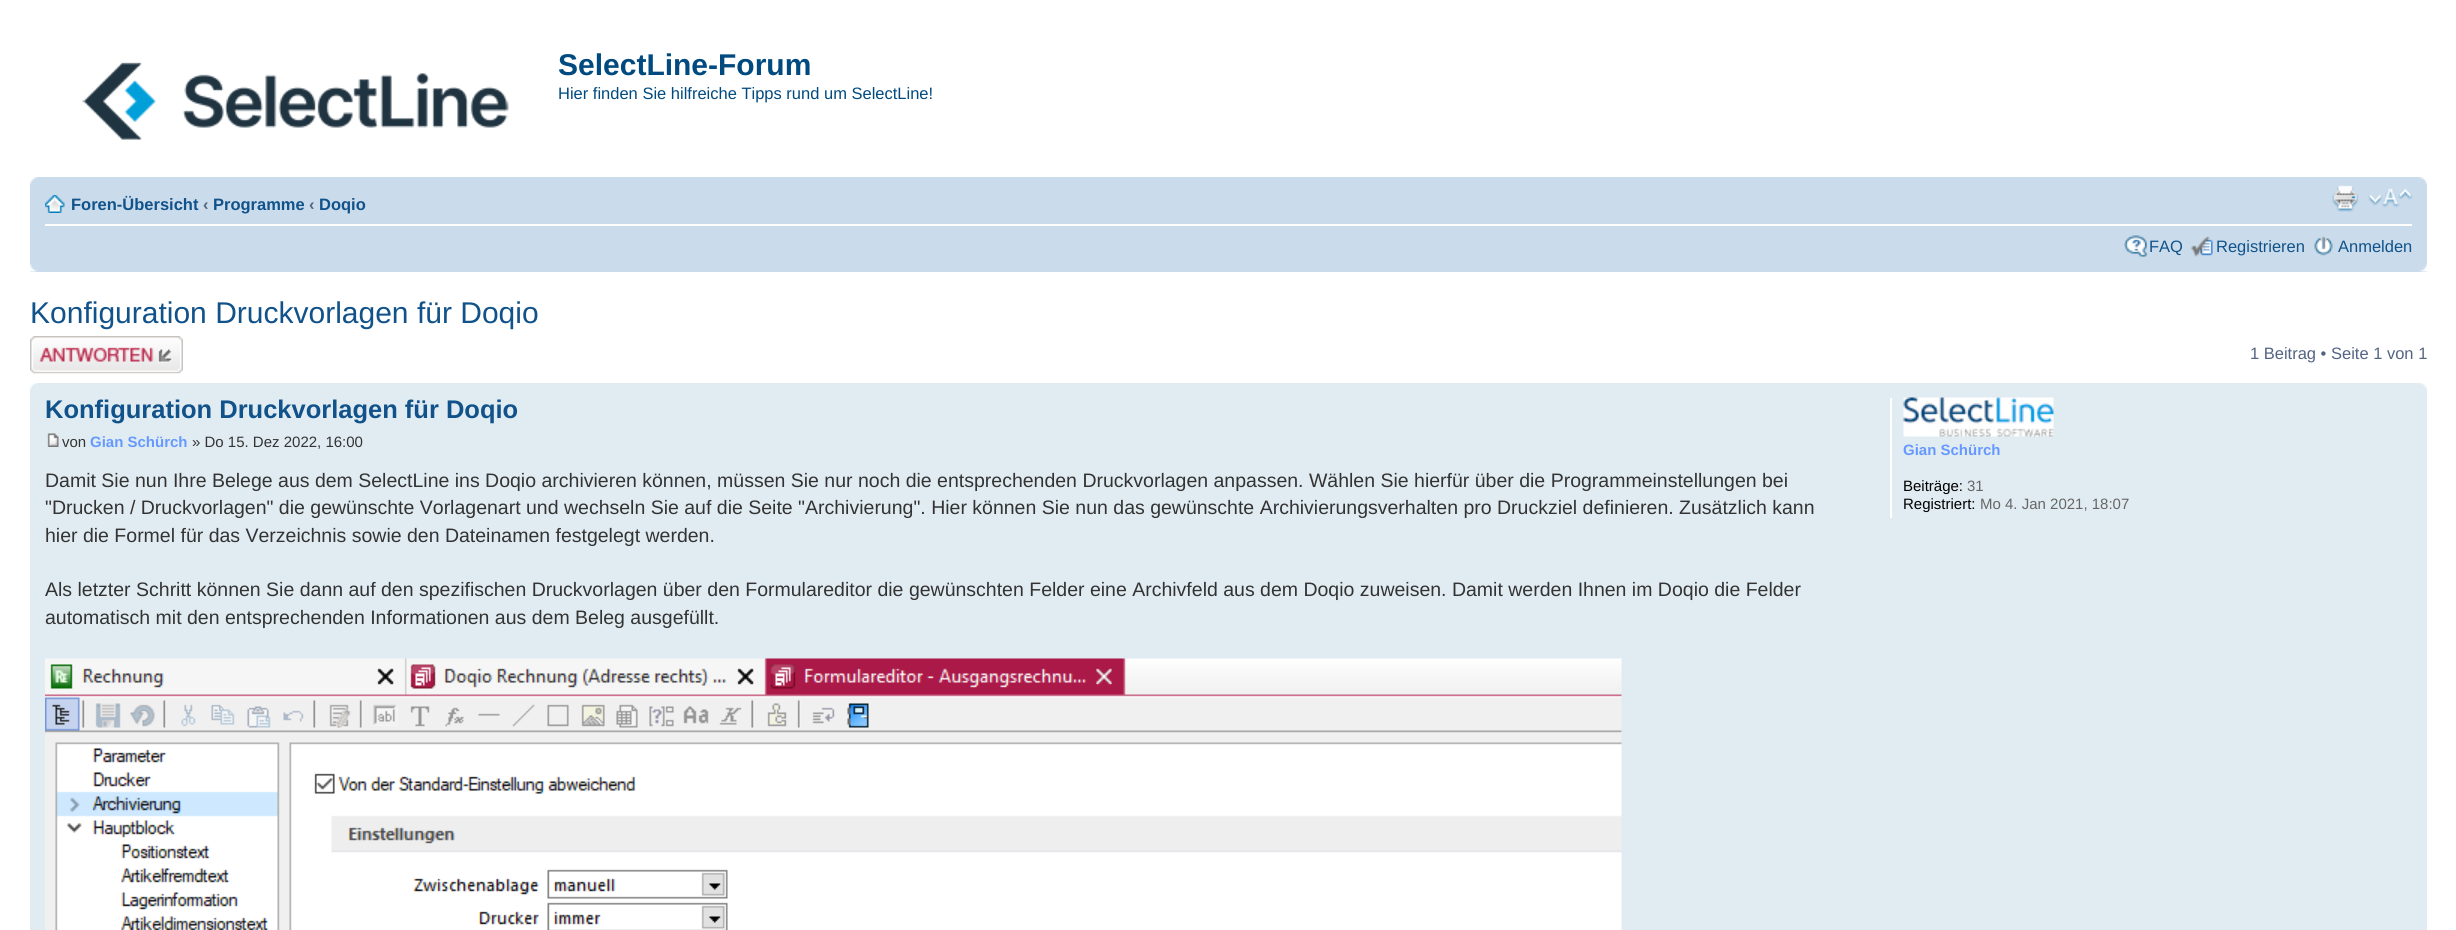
import math
import cairo

surface = cairo.ImageSurface(cairo.FORMAT_RGB24, 2456, 930)
ctx = cairo.Context(surface)
options = cairo.FontOptions()
options.set_hint_metrics(cairo.HINT_METRICS_OFF)
options.set_hint_style(cairo.HINT_STYLE_NONE)
ctx.set_font_options(options)
ctx.set_miter_limit(4)


def picture(path, x, y, w, h):
    ctx.save()
    ctx.set_source_surface(cairo.ImageSurface.create_from_png(path), x, y)
    ctx.rectangle(x, y, w, h)
    ctx.fill()
    ctx.restore()


ctx.set_source_rgb(1, 1, 1)
ctx.paint()
picture("img1.png", 82, 62, 427, 78)
ctx.select_font_face("Liberation Sans", cairo.FONT_SLANT_NORMAL, cairo.FONT_WEIGHT_BOLD)
ctx.set_font_size(30)
ctx.set_source_rgb(0, 0.29, 0.498)
ctx.move_to(558, 75)
ctx.show_text("SelectLine-Forum")
ctx.select_font_face("Liberation Sans")
ctx.set_font_size(16.5)
ctx.move_to(558, 99)
ctx.show_text("Hier finden Sie hilfreiche Tipps rund um SelectLine!")
ctx.set_source_rgb(0.792, 0.863, 0.922)
ctx.rectangle(30, 177, 2397, 95)
ctx.fill()
picture("img2.png", 30, 177, 8, 8)
picture("img3.png", 2419, 177, 8, 8)
ctx.set_source_rgb(1, 1, 1)
ctx.rectangle(45, 224, 2367, 2)
ctx.fill()
picture("img4.png", 45, 195, 20, 18)
ctx.select_font_face("Liberation Sans", cairo.FONT_SLANT_NORMAL, cairo.FONT_WEIGHT_BOLD)
ctx.set_source_rgb(0.063, 0.322, 0.537)
ctx.move_to(71, 210)
ctx.show_text("Foren-Übersicht")
ctx.set_source_rgb(0.325, 0.392, 0.51)
ctx.move_to(203, 210)
ctx.show_text("‹")
ctx.set_source_rgb(0.063, 0.322, 0.537)
ctx.move_to(213, 210)
ctx.show_text("Programme")
ctx.set_source_rgb(0.325, 0.392, 0.51)
ctx.move_to(309, 210)
ctx.show_text("‹")
ctx.set_source_rgb(0.063, 0.322, 0.537)
ctx.move_to(319, 210)
ctx.show_text("Doqio")
picture("img5.png", 2332, 185, 27, 27)
picture("img6.png", 2368, 188, 44, 20)
picture("img7.png", 2124, 235, 24, 22)
ctx.select_font_face("Liberation Sans")
ctx.move_to(2149, 252)
ctx.show_text("FAQ")
picture("img8.png", 2191, 236, 22, 21)
ctx.move_to(2216, 252)
ctx.show_text("Registrieren")
picture("img9.png", 2314, 236, 19, 20)
ctx.move_to(2338, 252)
ctx.show_text("Anmelden")
picture("img10.png", 30, 264, 8, 8)
picture("img11.png", 2419, 264, 8, 8)
ctx.set_font_size(30)
ctx.move_to(30, 323)
ctx.show_text("Konfiguration Druckvorlagen für Doqio")
picture("img12.png", 30, 336, 153, 38)
ctx.set_font_size(16.5)
ctx.set_source_rgb(0.325, 0.392, 0.51)
ctx.move_to(2250, 359)
ctx.show_text("1 Beitrag • Seite 1 von 1")
ctx.set_source_rgb(0.882, 0.922, 0.949)
ctx.rectangle(30, 383, 2397, 547)
ctx.fill()
picture("img13.png", 30, 383, 7, 7)
picture("img14.png", 2420, 383, 7, 7)
ctx.select_font_face("Liberation Sans", cairo.FONT_SLANT_NORMAL, cairo.FONT_WEIGHT_BOLD)
ctx.set_font_size(25.5)
ctx.set_source_rgb(0.063, 0.322, 0.537)
ctx.move_to(45, 418)
ctx.show_text("Konfiguration Druckvorlagen für Doqio")
picture("img15.png", 47, 433, 12, 14)
ctx.select_font_face("Liberation Sans")
ctx.set_font_size(15)
ctx.set_source_rgb(0.2, 0.2, 0.2)
ctx.move_to(62, 447)
ctx.show_text("von")
ctx.select_font_face("Liberation Sans", cairo.FONT_SLANT_NORMAL, cairo.FONT_WEIGHT_BOLD)
ctx.set_source_rgb(0.4, 0.6, 1)
ctx.move_to(90, 447)
ctx.show_text("Gian Schürch")
ctx.select_font_face("Liberation Sans")
ctx.set_source_rgb(0.2, 0.2, 0.2)
ctx.move_to(192, 447)
ctx.show_text("» Do 15. Dez 2022, 16:00")
ctx.set_font_size(19.5)
ctx.move_to(45, 487)
ctx.show_text("Damit Sie nun Ihre Belege aus dem SelectLine ins Doqio archivieren können, müssen Sie nur noch die entsprechenden Druckvorlagen anpassen. Wählen Sie hierfür über die Programmeinstellungen bei")
ctx.move_to(45, 514)
ctx.show_text("\"Drucken / Druckvorlagen\" die gewünschte Vorlagenart und wechseln Sie auf die Seite \"Archivierung\". Hier können Sie nun das gewünschte Archivierungsverhalten pro Druckziel definieren. Zusätzlich kann")
ctx.move_to(45, 542)
ctx.show_text("hier die Formel für das Verzeichnis sowie den Dateinamen festgelegt werden.")
ctx.move_to(45, 596)
ctx.show_text("Als letzter Schritt können Sie dann auf den spezifischen Druckvorlagen über den Formulareditor die gewünschten Felder eine Archivfeld aus dem Doqio zuweisen. Damit werden Ihnen im Doqio die Felder")
ctx.move_to(45, 624)
ctx.show_text("automatisch mit den entsprechenden Informationen aus dem Beleg ausgefüllt.")
picture("img16.png", 45, 658, 1577, 272)
ctx.set_source_rgb(1, 1, 1)
ctx.rectangle(1890, 398, 2, 120)
ctx.fill()
picture("img17.png", 1903, 397, 151, 40)
ctx.select_font_face("Liberation Sans", cairo.FONT_SLANT_NORMAL, cairo.FONT_WEIGHT_BOLD)
ctx.set_font_size(15)
ctx.set_source_rgb(0.4, 0.6, 1)
ctx.move_to(1903, 455)
ctx.show_text("Gian Schürch")
ctx.select_font_face("Liberation Sans")
ctx.set_source_rgb(0, 0, 0)
ctx.move_to(1903, 491)
ctx.show_text("Beiträge:")
ctx.set_source_rgb(0.4, 0.4, 0.4)
ctx.move_to(1967, 491)
ctx.show_text("31")
ctx.set_source_rgb(0, 0, 0)
ctx.move_to(1903, 509)
ctx.show_text("Registriert:")
ctx.set_source_rgb(0.4, 0.4, 0.4)
ctx.move_to(1980, 509)
ctx.show_text("Mo 4. Jan 2021, 18:07")
surface.write_to_png("page.png")
